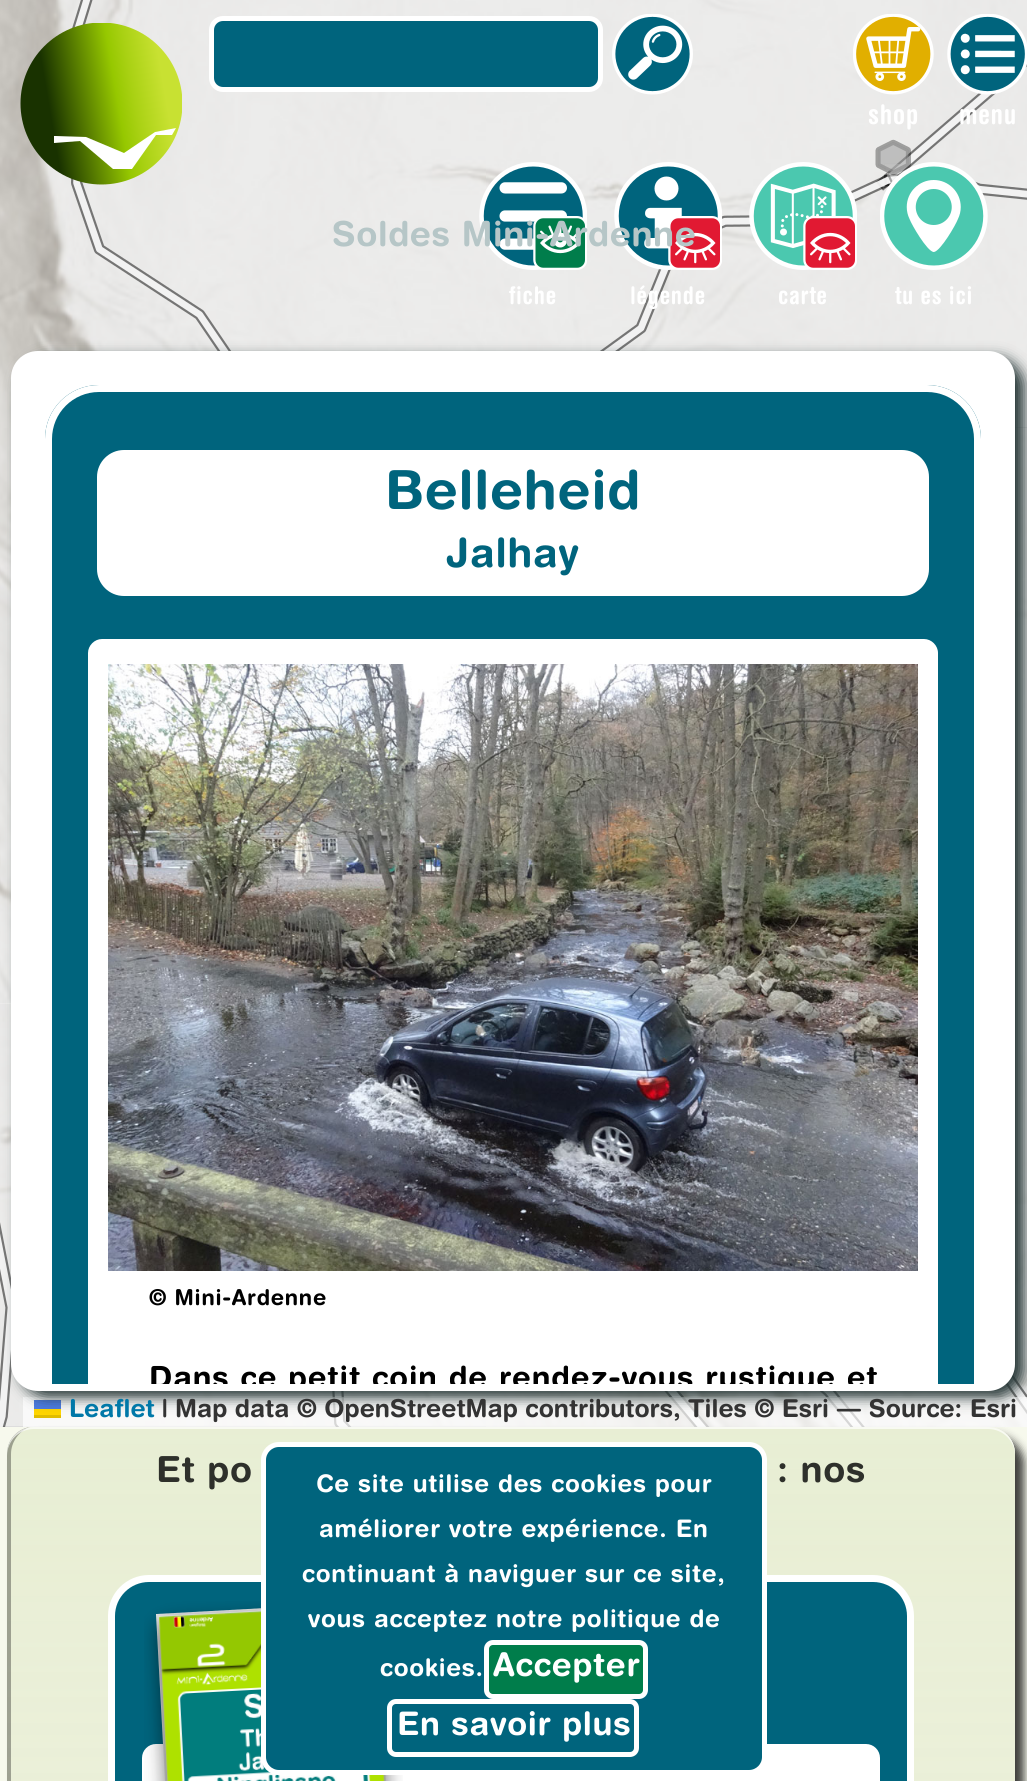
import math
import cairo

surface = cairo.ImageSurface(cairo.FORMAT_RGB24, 1027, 1781)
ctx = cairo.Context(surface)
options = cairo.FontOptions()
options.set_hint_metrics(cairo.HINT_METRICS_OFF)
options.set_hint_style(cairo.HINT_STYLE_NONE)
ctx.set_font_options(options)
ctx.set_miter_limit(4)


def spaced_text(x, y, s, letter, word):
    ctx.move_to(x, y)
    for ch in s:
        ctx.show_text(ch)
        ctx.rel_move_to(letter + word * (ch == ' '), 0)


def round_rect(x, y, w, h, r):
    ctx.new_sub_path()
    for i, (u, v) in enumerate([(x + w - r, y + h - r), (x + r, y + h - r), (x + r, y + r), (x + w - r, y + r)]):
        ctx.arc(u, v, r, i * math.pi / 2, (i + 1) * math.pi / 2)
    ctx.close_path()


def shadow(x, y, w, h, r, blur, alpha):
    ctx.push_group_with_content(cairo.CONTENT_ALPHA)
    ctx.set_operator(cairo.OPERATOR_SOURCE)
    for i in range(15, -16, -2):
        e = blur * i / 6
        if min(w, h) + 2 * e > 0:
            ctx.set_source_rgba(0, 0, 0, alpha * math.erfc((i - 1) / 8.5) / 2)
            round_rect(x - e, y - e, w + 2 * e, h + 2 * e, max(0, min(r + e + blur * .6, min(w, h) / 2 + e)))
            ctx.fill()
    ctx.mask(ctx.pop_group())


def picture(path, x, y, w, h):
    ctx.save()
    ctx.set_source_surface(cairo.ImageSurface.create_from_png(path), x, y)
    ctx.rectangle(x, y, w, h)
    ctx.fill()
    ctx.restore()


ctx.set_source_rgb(0.965, 0.973, 0.929)
ctx.paint()
ctx.set_source_rgb(0.867, 0.867, 0.867)
ctx.rectangle(0, 0, 1027, 1427)
ctx.fill()
picture("img9.png", 0, 0, 486, 428)
picture("img10.png", 486, 0, 541, 427)
picture("img11.png", 0, 428, 11, 576)
picture("img12.png", 1015, 428, 12, 576)
picture("img13.png", 0, 1003, 486, 423)
picture("img14.png", 486, 1004, 541, 423)
picture("img15.png", 0, 0, 1027, 1427)
picture("img16.png", 44, 44, 3, 3)
ctx.save()
ctx.rectangle(20, 23, 162, 162)
ctx.clip()
gradient = cairo.LinearGradient(185, 89, 50, 112)
gradient.add_color_stop_rgba(0.15, 0.784, 0.882, 0.196, 1)
gradient.add_color_stop_rgba(0.38, 0.663, 0.82, 0.075, 1)
gradient.add_color_stop_rgba(0.5, 0.588, 0.784, 0, 1)
gradient.add_color_stop_rgba(1, 0.098, 0.196, 0, 1)
ctx.set_source(gradient)
ctx.arc(101.5, 103.5, 81, 0, 2 * math.pi)
ctx.fill()
ctx.restore()
ctx.set_source_rgb(1, 1, 1)
ctx.new_path()
ctx.move_to(155, 132)
ctx.line_to(124, 153)
ctx.line_to(86, 137)
ctx.line_to(54, 136)
ctx.line_to(54, 143)
ctx.line_to(80, 141)
ctx.line_to(113, 169)
ctx.line_to(132, 169)
ctx.line_to(156, 135)
ctx.line_to(172, 135)
ctx.line_to(176, 128)
ctx.close_path()
ctx.fill()
ctx.set_source_rgb(0, 0.392, 0.49)
round_rect(211.5, 18.5, 389, 71, 11.5)
ctx.fill_preserve()
ctx.set_source_rgb(1, 1, 1)
ctx.set_line_width(5)
ctx.stroke()
picture("img1.png", 612, 14, 81, 81)
picture("img2.png", 853, 14, 81, 81)
ctx.select_font_face("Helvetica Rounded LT", cairo.FONT_SLANT_NORMAL, cairo.FONT_WEIGHT_BOLD)
ctx.set_font_size(27)
spaced_text(868, 124, "shop", 0.75, 0)
picture("img3.png", 947, 14, 80, 81)
spaced_text(959, 124, "menu", 0.75, 0)
picture("img4.png", 479, 162, 108, 108)
picture("img5.png", 614, 162, 108, 108)
ctx.select_font_face("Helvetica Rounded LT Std", cairo.FONT_SLANT_NORMAL, cairo.FONT_WEIGHT_BOLD)
ctx.set_font_size(34.5)
ctx.set_source_rgb(0.714, 0.776, 0.78)
spaced_text(332, 246, "Soldes Mini-Ardenne", 0.6, 0)
ctx.set_source_rgba(1, 1, 1, 0.7)
ctx.rectangle(23, 1397, 1004, 30)
ctx.fill()
ctx.save()
ctx.set_fill_rule(cairo.FILL_RULE_EVEN_ODD)
ctx.new_path()
ctx.move_to(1, 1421)
ctx.line_to(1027, 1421)
ctx.line_to(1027, 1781)
ctx.line_to(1, 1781)
ctx.close_path()
ctx.move_to(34, 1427)
ctx.line_to(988, 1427)
ctx.curve_to(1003, 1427, 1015, 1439, 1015, 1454)
ctx.line_to(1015, 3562)
ctx.line_to(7, 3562)
ctx.line_to(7, 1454)
ctx.curve_to(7, 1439, 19, 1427, 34, 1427)
ctx.close_path()
ctx.clip()
ctx.set_source_rgb(0, 0, 0)
shadow(16, 1436, 1008, 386, 27, 4.5, 0.75)
ctx.restore()
gradient = cairo.LinearGradient(511, 1427, 511, 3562)
gradient.add_color_stop_rgba(0, 0.882, 0.914, 0.784, 0.67)
gradient.add_color_stop_rgba(1, 1, 1, 1, 1)
ctx.set_source(gradient)
ctx.new_path()
ctx.move_to(34, 1427)
ctx.line_to(988, 1427)
ctx.curve_to(1003, 1427, 1015, 1439, 1015, 1454)
ctx.line_to(1015, 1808)
ctx.line_to(7, 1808)
ctx.line_to(7, 1454)
ctx.curve_to(7, 1439, 19, 1427, 34, 1427)
ctx.close_path()
ctx.fill()
ctx.set_source_rgba(0, 0, 0, 0.33)
ctx.new_path()
ctx.move_to(30, 1427)
ctx.curve_to(17, 1429, 7, 1440, 7, 1454)
ctx.line_to(7, 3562)
ctx.line_to(11, 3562)
ctx.line_to(11, 1454)
ctx.curve_to(11, 1442, 19, 1431, 30, 1427)
ctx.close_path()
ctx.fill()
ctx.set_source_rgba(1, 1, 1, 0.7)
ctx.new_path()
ctx.move_to(34, 1429)
ctx.line_to(988, 1429)
ctx.curve_to(1003, 1429, 1015, 1441, 1015, 1456)
ctx.line_to(1015, 1454)
ctx.curve_to(1015, 1439, 1003, 1427, 988, 1427)
ctx.line_to(34, 1427)
ctx.curve_to(19, 1427, 7, 1439, 7, 1454)
ctx.line_to(7, 1456)
ctx.curve_to(7, 1441, 19, 1429, 34, 1429)
ctx.close_path()
ctx.fill()
ctx.set_source_rgb(0, 0.392, 0.49)
round_rect(111.5, 1578.5, 799, 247, 37.5)
ctx.fill_preserve()
ctx.set_source_rgb(1, 1, 1)
ctx.set_line_width(7)
ctx.stroke()
round_rect(142, 1744, 738, 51, 14)
ctx.fill()
ctx.new_path()
ctx.move_to(156, 1614)
ctx.line_to(376, 1602)
ctx.line_to(401, 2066)
ctx.line_to(181, 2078)
ctx.close_path()
ctx.fill()
ctx.new_path()
ctx.move_to(157.5, 1615)
ctx.line_to(375.5, 1603.5)
ctx.line_to(399.5, 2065)
ctx.line_to(181.5, 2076.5)
ctx.close_path()
ctx.set_source_rgba(0, 0, 0, 0.1)
ctx.set_line_width(2.3)
ctx.stroke()
picture("img18.png", 144, 1601, 259, 180)
ctx.set_source_rgb(0, 0.392, 0.49)
round_rect(263.5, 1444.5, 501, 328, 15.5)
ctx.fill_preserve()
ctx.set_source_rgb(1, 1, 1)
ctx.set_line_width(5)
ctx.stroke()
ctx.set_font_size(24.25)
spaced_text(316, 1492, "Ce site utilise des cookies pour", 0.75, 0)
spaced_text(319, 1537, "améliorer votre expérience. En", 0.75, 0)
spaced_text(302, 1582, "continuant à naviguer sur ce site,", 0.75, 0)
spaced_text(308, 1627, "vous acceptez notre politique de", 0.75, 0)
spaced_text(380, 1676, "cookies.", 0.75, 0)
ctx.set_source_rgb(0, 0.49, 0.294)
round_rect(486.5, 1642.5, 159, 54, 6.5)
ctx.fill_preserve()
ctx.set_source_rgb(1, 1, 1)
ctx.stroke()
ctx.set_font_size(32.5)
spaced_text(493, 1676, "Accepter", 0.75, 0)
round_rect(389.5, 1701.5, 247, 53, 6.5)
ctx.stroke()
spaced_text(397, 1735, "En savoir plus", 0.75, 0)
ctx.select_font_face("Helvetica Rounded LT", cairo.FONT_SLANT_NORMAL, cairo.FONT_WEIGHT_BOLD)
ctx.set_font_size(24.25)
spaced_text(509, 304, "fiche", 0.75, 0)
spaced_text(630, 304, "légende", 0.75, 0)
picture("img6.png", 749, 162, 108, 108)
spaced_text(778, 304, "carte", 0.75, 0)
ctx.set_source_rgba(1, 1, 1, 0.33)
ctx.new_path()
ctx.move_to(901, 164)
ctx.line_to(893, 199.5)
ctx.line_to(884.5, 164)
ctx.close_path()
ctx.fill_preserve()
ctx.set_source_rgba(0, 0, 0, 0.17)
ctx.set_line_width(0.1)
ctx.stroke()
picture("img17.png", 875, 139, 36, 37)
picture("img7.png", 880, 162, 108, 108)
ctx.set_source_rgb(1, 1, 1)
spaced_text(895, 304, "tu es ici", 0.75, 0)
ctx.set_source_rgb(0.298, 0.482, 0.882)
ctx.rectangle(34, 1400, 27, 9)
ctx.fill()
ctx.set_source_rgb(1, 0.835, 0)
ctx.rectangle(34, 1409, 27, 6)
ctx.fill()
ctx.set_source_rgb(0.878, 0.737, 0)
ctx.rectangle(34, 1415, 27, 3)
ctx.fill()
ctx.set_source_rgb(0.133, 0.2, 0.2)
shadow(20, 358, 1004, 1039, 27, 7, 1)
ctx.set_source_rgb(1, 1, 1)
round_rect(14.5, 354.5, 997, 1033, 23.5)
ctx.fill_preserve()
ctx.set_line_width(7)
ctx.stroke()
ctx.set_source_rgb(0, 0.392, 0.49)
ctx.new_path()
ctx.move_to(99, 385)
ctx.line_to(927, 385)
ctx.curve_to(957, 385, 981, 409, 981, 439)
ctx.line_to(981, 1384)
ctx.line_to(45, 1384)
ctx.line_to(45, 439)
ctx.curve_to(45, 409, 69, 385, 99, 385)
ctx.close_path()
ctx.fill()
ctx.set_source_rgb(1, 1, 1)
ctx.new_path()
ctx.move_to(99, 385)
ctx.curve_to(69, 385, 45, 409, 45, 439)
ctx.line_to(45, 1384)
ctx.line_to(52, 1384)
ctx.line_to(52, 439)
ctx.curve_to(52, 413, 73, 392, 99, 392)
ctx.line_to(927, 392)
ctx.curve_to(953, 392, 974, 413, 974, 439)
ctx.line_to(974, 1384)
ctx.line_to(981, 1384)
ctx.line_to(981, 439)
ctx.curve_to(981, 409, 957, 385, 927, 385)
ctx.close_path()
ctx.fill()
round_rect(92.5, 445.5, 841, 155, 31.5)
ctx.fill_preserve()
ctx.set_source_rgb(0, 0.392, 0.49)
ctx.set_line_width(9)
ctx.stroke()
ctx.select_font_face("Helvetica Rounded LT Std", cairo.FONT_SLANT_NORMAL, cairo.FONT_WEIGHT_BOLD)
ctx.set_font_size(54)
spaced_text(385, 509, "Belleheid", 0.75, 0)
ctx.set_font_size(40.5)
spaced_text(446, 567, "Jalhay", 0.75, 0)
ctx.set_source_rgb(1, 1, 1)
ctx.new_path()
ctx.move_to(102, 639)
ctx.line_to(924, 639)
ctx.curve_to(931.5, 639, 938, 645.5, 938, 653)
ctx.line_to(938, 1384)
ctx.line_to(88, 1384)
ctx.line_to(88, 653)
ctx.curve_to(88, 645.5, 94.5, 639, 102, 639)
ctx.close_path()
ctx.fill()
picture("img8.png", 108, 664, 810, 607)
ctx.set_font_size(21.75)
ctx.set_source_rgb(0, 0, 0)
spaced_text(149, 1305, "© Mini-Ardenne", 0.75, 0)
ctx.save()
round_rect(18, 358, 990, 1026, 20)
ctx.clip()
ctx.set_font_size(30.6)
spaced_text(149, 1388, "Dans ce petit coin de rendez-vous rustique et", 0.9, 0.5)
ctx.restore()
ctx.set_font_size(24.75)
ctx.set_source_rgb(0, 0.471, 0.659)
ctx.move_to(69, 1417)
ctx.show_text("Leaflet")
ctx.set_source_rgb(0.2, 0.2, 0.2)
ctx.move_to(162, 1417)
ctx.show_text("| Map data © OpenStreetMap contributors, Tiles © Esri — Source: Esri")
ctx.set_font_size(36)
ctx.set_source_rgb(0.18, 0.188, 0.169)
spaced_text(156, 1482, "Et po", 0.75, 0)
spaced_text(777, 1482, ": nos", 0.75, 0)
surface.write_to_png("page.png")
